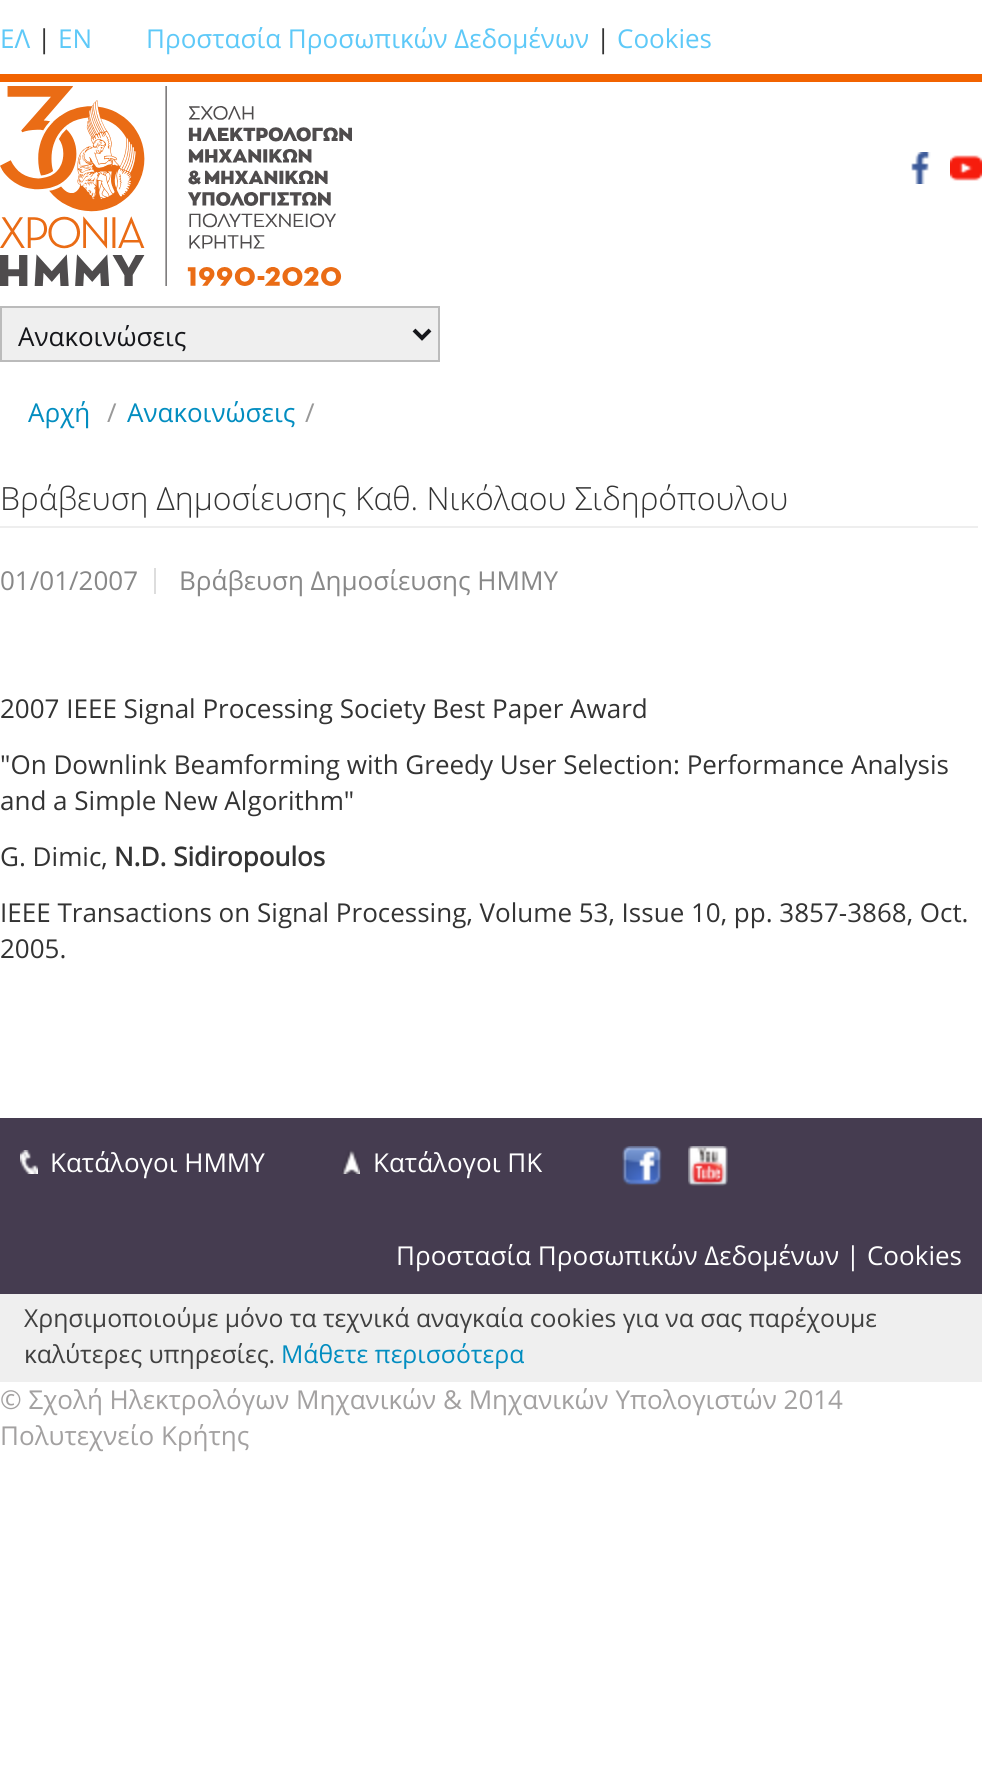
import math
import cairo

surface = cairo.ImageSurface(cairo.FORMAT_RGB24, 982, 1783)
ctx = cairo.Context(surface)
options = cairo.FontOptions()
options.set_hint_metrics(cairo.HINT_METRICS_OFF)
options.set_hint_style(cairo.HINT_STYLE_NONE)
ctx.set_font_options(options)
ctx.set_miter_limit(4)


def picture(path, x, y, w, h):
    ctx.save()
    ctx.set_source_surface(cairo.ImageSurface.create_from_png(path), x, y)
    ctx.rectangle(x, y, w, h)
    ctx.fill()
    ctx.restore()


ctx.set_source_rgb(1, 1, 1)
ctx.paint()
ctx.select_font_face("Open Sans")
ctx.set_font_size(26)
ctx.set_source_rgb(0.369, 0.788, 0.969)
ctx.move_to(0, 48)
ctx.show_text("ΕΛ")
ctx.set_source_rgb(0.2, 0.2, 0.2)
ctx.move_to(37, 48)
ctx.show_text("|")
ctx.set_source_rgb(0.369, 0.788, 0.969)
ctx.move_to(58, 48)
ctx.show_text("EN")
ctx.move_to(146, 48)
ctx.show_text("Προστασία Προσωπικών Δεδομένων")
ctx.set_source_rgb(0.2, 0.2, 0.2)
ctx.move_to(596, 48)
ctx.show_text("|")
ctx.set_source_rgb(0.369, 0.788, 0.969)
ctx.move_to(617, 48)
ctx.show_text("Cookies")
ctx.set_source_rgb(0.949, 0.388, 0)
ctx.rectangle(0, 74, 982, 8)
ctx.fill()
picture("img1.png", 0, 86, 352, 200)
picture("img2.png", 911, 152, 20, 32)
picture("img3.png", 950, 155, 32, 26)
ctx.set_source_rgb(0.937, 0.937, 0.937)
ctx.rectangle(1, 307, 438, 54)
ctx.fill_preserve()
ctx.set_source_rgb(0.733, 0.733, 0.733)
ctx.stroke()
ctx.new_path()
ctx.move_to(414, 330)
ctx.line_to(422, 338)
ctx.line_to(430, 330)
ctx.set_source_rgb(0.086, 0.09, 0.106)
ctx.set_line_width(4)
ctx.stroke()
ctx.move_to(18, 346)
ctx.show_text("Ανακοινώσεις")
ctx.set_source_rgb(0.008, 0.553, 0.753)
ctx.move_to(28, 422)
ctx.show_text("Αρχή")
ctx.set_source_rgb(0.6, 0.6, 0.6)
ctx.move_to(107, 422)
ctx.show_text("/")
ctx.set_source_rgb(0.008, 0.553, 0.753)
ctx.move_to(127, 422)
ctx.show_text("Ανακοινώσεις")
ctx.set_source_rgb(0.6, 0.6, 0.6)
ctx.move_to(305, 422)
ctx.show_text("/")
ctx.select_font_face("Open Sans Light")
ctx.set_font_size(32)
ctx.set_source_rgb(0.2, 0.2, 0.2)
ctx.move_to(0, 510)
ctx.show_text("Βράβευση Δημοσίευσης Καθ. Νικόλαου Σιδηρόπουλου")
ctx.set_source_rgb(0.933, 0.933, 0.933)
ctx.rectangle(0, 526, 978, 2)
ctx.fill()
ctx.set_source_rgb(0.867, 0.867, 0.867)
ctx.rectangle(154, 568, 2, 26)
ctx.fill()
ctx.select_font_face("Open Sans")
ctx.set_font_size(26)
ctx.set_source_rgb(0.533, 0.533, 0.533)
ctx.move_to(0, 590)
ctx.show_text("01/01/2007")
ctx.move_to(179, 590)
ctx.show_text("Βράβευση Δημοσίευσης ΗΜΜΥ")
ctx.set_source_rgb(0.2, 0.2, 0.2)
ctx.move_to(0, 718)
ctx.show_text("2007 IEEE Signal Processing Society Best Paper Award")
ctx.move_to(0, 774)
ctx.show_text("\"On Downlink Beamforming with Greedy User Selection: Performance Analysis")
ctx.move_to(0, 810)
ctx.show_text("and a Simple New Algorithm\"")
ctx.move_to(0, 866)
ctx.show_text("G. Dimic,")
ctx.select_font_face("Open Sans", cairo.FONT_SLANT_NORMAL, cairo.FONT_WEIGHT_BOLD)
ctx.move_to(114, 866)
ctx.show_text("N.D. Sidiropoulos")
ctx.select_font_face("Open Sans")
ctx.move_to(0, 922)
ctx.show_text("IEEE Transactions on Signal Processing, Volume 53, Issue 10, pp. 3857-3868, Oct.")
ctx.move_to(0, 958)
ctx.show_text("2005.")
ctx.set_source_rgb(0.271, 0.235, 0.314)
ctx.rectangle(0, 1118, 982, 176)
ctx.fill()
picture("img4.png", 20, 1150, 18, 24)
ctx.set_source_rgb(1, 1, 1)
ctx.move_to(50, 1172)
ctx.show_text("Κατάλογοι ΗΜΜΥ")
picture("img5.png", 342, 1150, 18, 24)
ctx.move_to(373, 1172)
ctx.show_text("Κατάλογοι ΠΚ")
picture("img6.png", 622, 1146, 40, 40)
picture("img7.png", 688, 1146, 40, 40)
ctx.move_to(396, 1265)
ctx.show_text("Προστασία Προσωπικών Δεδομένων | Cookies")
ctx.set_source_rgb(0.937, 0.937, 0.937)
ctx.rectangle(0, 1294, 982, 88)
ctx.fill()
ctx.set_font_size(24.7)
ctx.set_source_rgb(0.251, 0.251, 0.251)
ctx.move_to(24, 1327)
ctx.show_text("Χρησιμοποιούμε μόνο τα τεχνικά αναγκαία cookies για να σας παρέχουμε")
ctx.move_to(24, 1363)
ctx.show_text("καλύτερες υπηρεσίες.")
ctx.set_source_rgb(0.008, 0.553, 0.753)
ctx.move_to(281, 1363)
ctx.show_text("Μάθετε περισσότερα")
ctx.set_font_size(26)
ctx.set_source_rgb(0.639, 0.631, 0.631)
ctx.move_to(0, 1409)
ctx.show_text("© Σχολή Ηλεκτρολόγων Μηχανικών & Μηχανικών Υπολογιστών 2014")
ctx.move_to(0, 1445)
ctx.show_text("Πολυτεχνείο Κρήτης")
surface.write_to_png("page.png")
